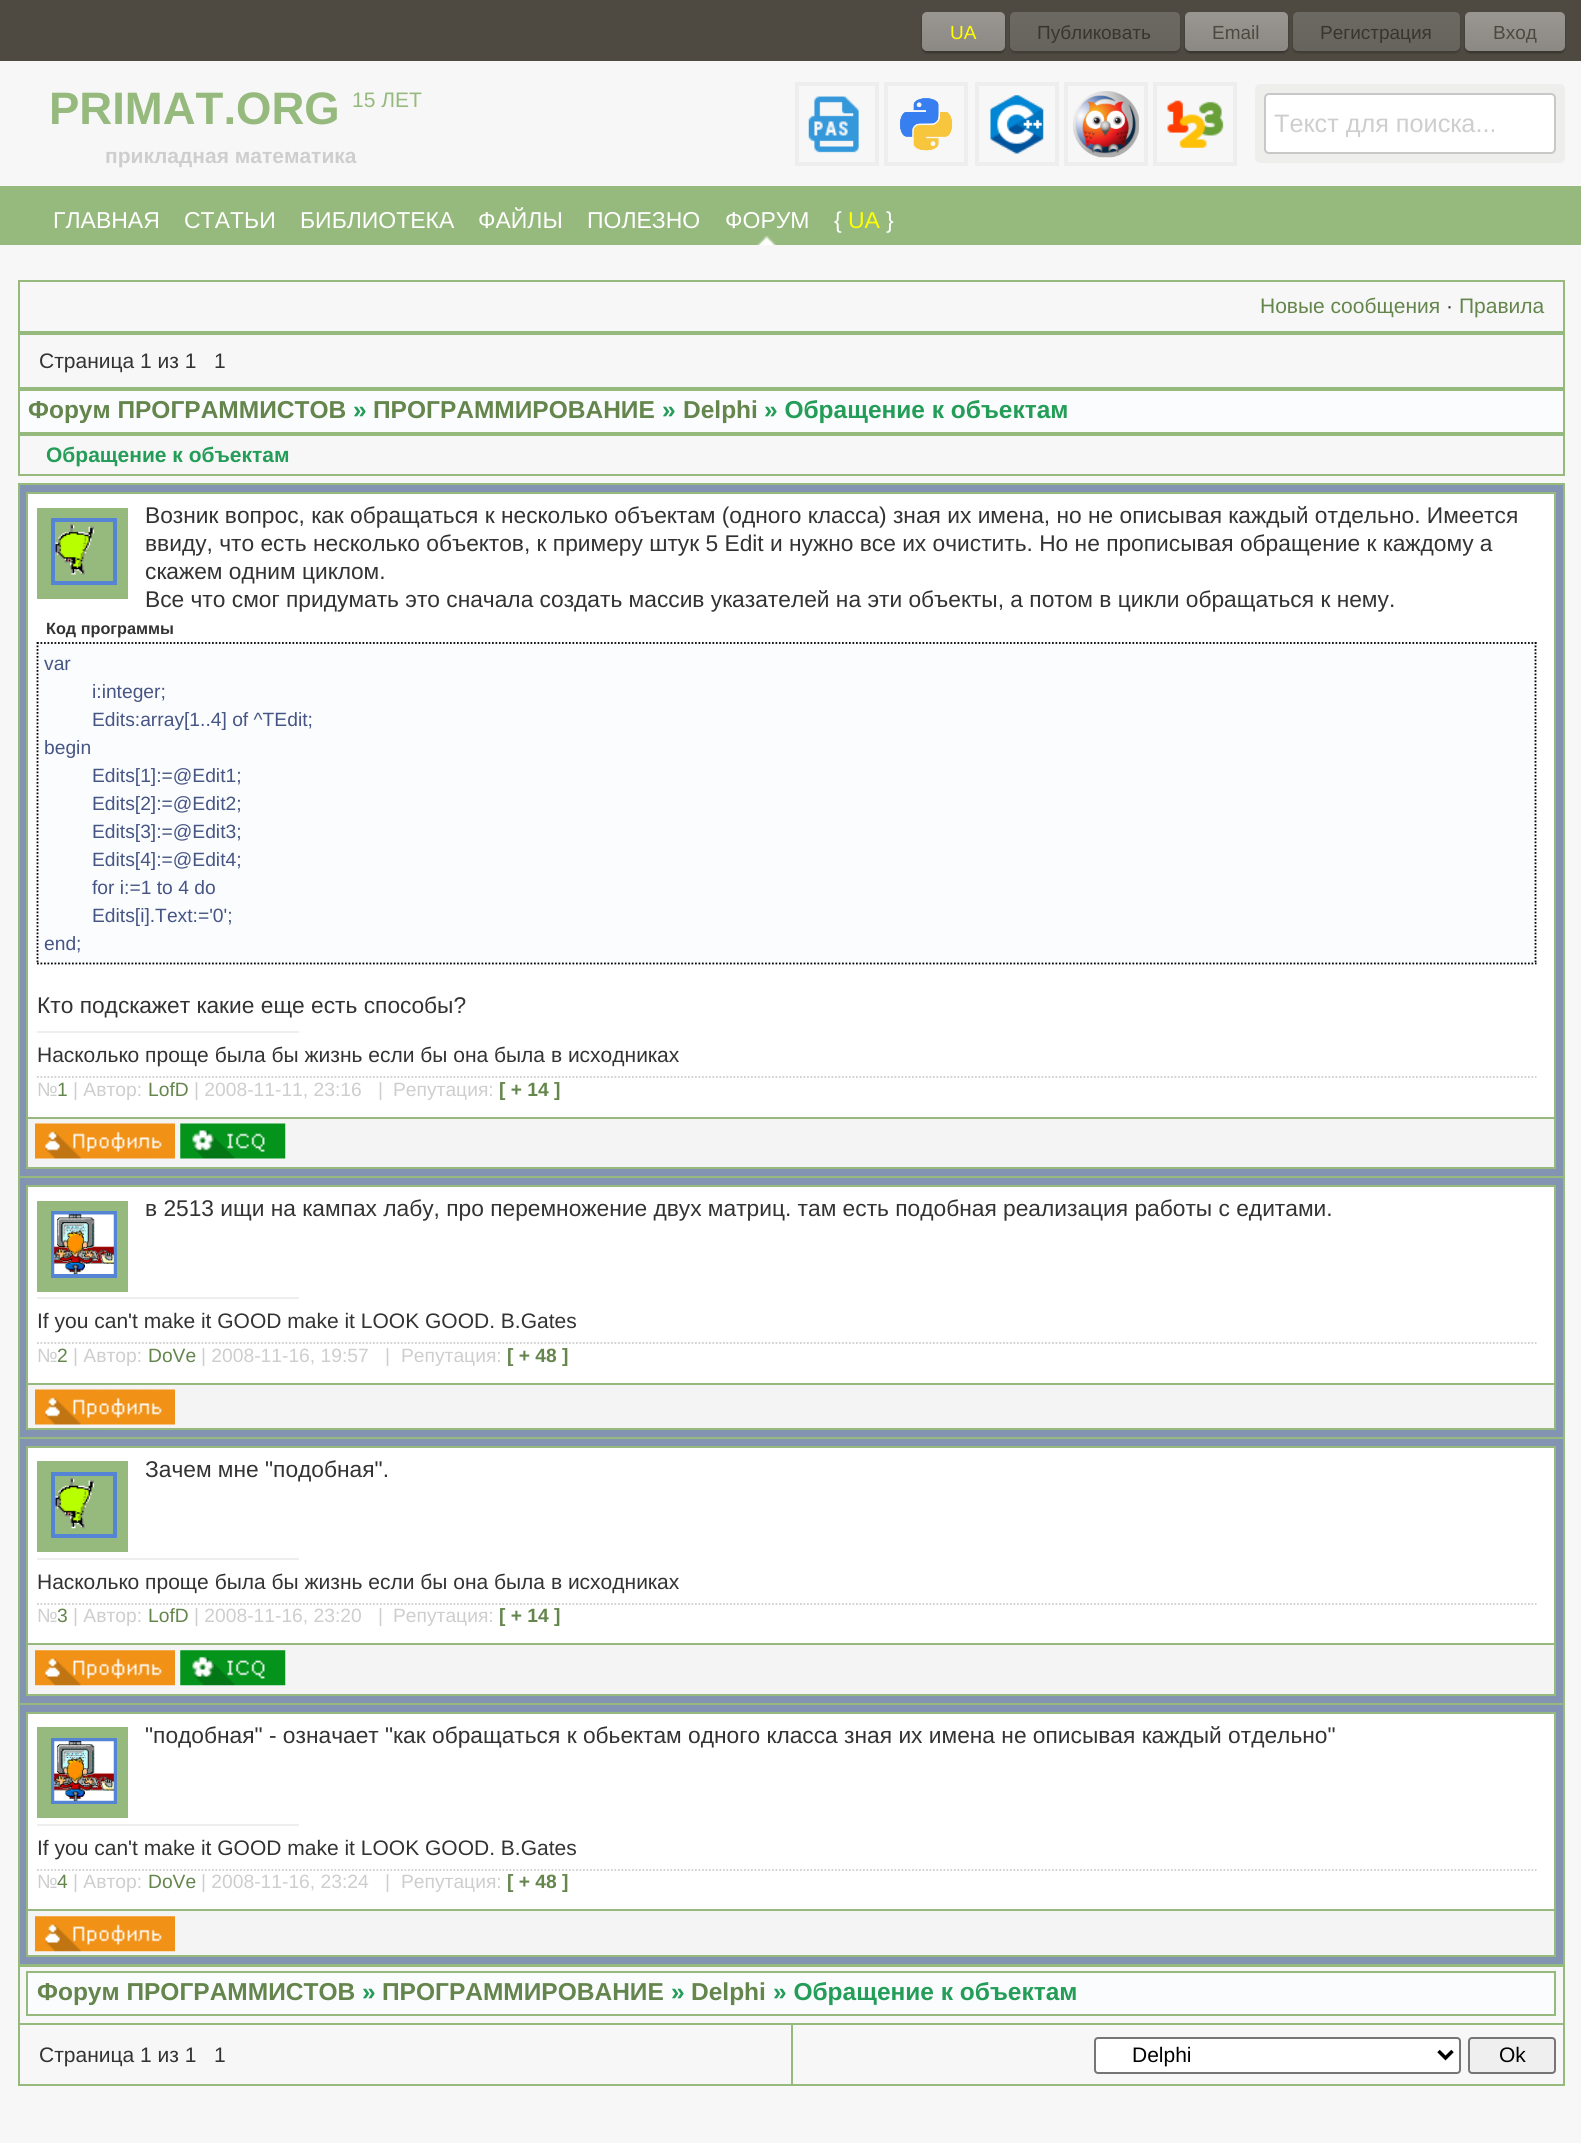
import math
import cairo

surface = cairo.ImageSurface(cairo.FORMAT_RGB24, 1581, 2143)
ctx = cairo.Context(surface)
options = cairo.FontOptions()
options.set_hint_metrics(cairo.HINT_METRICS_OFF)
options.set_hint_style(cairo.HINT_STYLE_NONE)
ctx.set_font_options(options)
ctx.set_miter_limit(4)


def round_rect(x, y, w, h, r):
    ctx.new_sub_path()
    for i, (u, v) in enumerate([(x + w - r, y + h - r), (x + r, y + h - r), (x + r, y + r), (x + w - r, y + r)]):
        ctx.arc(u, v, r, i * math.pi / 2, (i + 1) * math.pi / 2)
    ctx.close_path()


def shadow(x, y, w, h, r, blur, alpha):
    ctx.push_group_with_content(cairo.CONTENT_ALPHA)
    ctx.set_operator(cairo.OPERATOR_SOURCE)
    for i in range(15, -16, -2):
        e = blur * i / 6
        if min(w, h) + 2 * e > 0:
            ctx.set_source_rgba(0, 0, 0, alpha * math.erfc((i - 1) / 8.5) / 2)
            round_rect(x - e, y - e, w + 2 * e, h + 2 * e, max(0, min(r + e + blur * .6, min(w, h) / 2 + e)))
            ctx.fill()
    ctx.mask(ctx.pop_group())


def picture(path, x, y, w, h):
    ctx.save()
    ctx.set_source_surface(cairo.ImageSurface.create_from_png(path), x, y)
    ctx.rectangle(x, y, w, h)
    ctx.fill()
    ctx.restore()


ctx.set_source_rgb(0.965, 0.965, 0.965)
ctx.paint()
ctx.set_source_rgb(0.306, 0.286, 0.255)
ctx.rectangle(0, 0, 1581, 61)
ctx.fill()
ctx.set_source_rgb(0, 0, 0)
shadow(922, 14, 83, 39, 5, 1, 0.3)
ctx.set_source_rgb(0.302, 0.278, 0.247)
round_rect(922, 12, 83, 39, 5)
ctx.fill()
gradient = cairo.LinearGradient(963, 51, 963, -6.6)
gradient.add_color_stop_rgba(0, 0.8, 0.8, 0.8, 0.5)
gradient.add_color_stop_rgba(1, 0.957, 0.957, 0.957, 0.5)
ctx.set_source(gradient)
round_rect(922, 12, 83, 39, 5)
ctx.fill()
ctx.select_font_face("Liberation Sans")
ctx.set_font_size(19)
ctx.set_source_rgb(1, 1, 0)
ctx.move_to(950, 39)
ctx.show_text("UA")
ctx.set_source_rgb(0, 0, 0)
shadow(1010, 14, 170, 39, 5, 1, 0.2)
ctx.set_source_rgb(0.302, 0.286, 0.255)
round_rect(1010, 12, 170, 39, 5)
ctx.fill()
gradient = cairo.LinearGradient(1095, 51, 1095, -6.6)
gradient.add_color_stop_rgba(0, 0.8, 0.8, 0.8, 0.2)
gradient.add_color_stop_rgba(1, 0.957, 0.957, 0.957, 0.2)
ctx.set_source(gradient)
round_rect(1010, 12, 170, 39, 5)
ctx.fill()
ctx.set_source_rgb(0.224, 0.208, 0.176)
ctx.move_to(1037, 39)
ctx.show_text("Публиковать")
ctx.set_source_rgb(0, 0, 0)
shadow(1185, 14, 103, 39, 5, 1, 0.3)
ctx.set_source_rgb(0.302, 0.278, 0.247)
round_rect(1185, 12, 103, 39, 5)
ctx.fill()
gradient = cairo.LinearGradient(1236, 51, 1236, -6.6)
gradient.add_color_stop_rgba(0, 0.8, 0.8, 0.8, 0.5)
gradient.add_color_stop_rgba(1, 0.957, 0.957, 0.957, 0.5)
ctx.set_source(gradient)
round_rect(1185, 12, 103, 39, 5)
ctx.fill()
ctx.set_source_rgb(0.306, 0.286, 0.251)
ctx.move_to(1212, 39)
ctx.show_text("Email")
ctx.set_source_rgb(0, 0, 0)
shadow(1293, 14, 167, 39, 5, 1, 0.2)
ctx.set_source_rgb(0.302, 0.286, 0.255)
round_rect(1293, 12, 167, 39, 5)
ctx.fill()
gradient = cairo.LinearGradient(1376, 51, 1376, -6.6)
gradient.add_color_stop_rgba(0, 0.8, 0.8, 0.8, 0.2)
gradient.add_color_stop_rgba(1, 0.957, 0.957, 0.957, 0.2)
ctx.set_source(gradient)
round_rect(1293, 12, 167, 39, 5)
ctx.fill()
ctx.set_source_rgb(0.224, 0.208, 0.176)
ctx.move_to(1320, 39)
ctx.show_text("Регистрация")
ctx.set_source_rgb(0, 0, 0)
shadow(1465, 14, 100, 39, 5, 1, 0.3)
ctx.set_source_rgb(0.302, 0.278, 0.247)
round_rect(1465, 12, 100, 39, 5)
ctx.fill()
gradient = cairo.LinearGradient(1515, 51, 1515, -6.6)
gradient.add_color_stop_rgba(0, 0.8, 0.8, 0.8, 0.5)
gradient.add_color_stop_rgba(1, 0.957, 0.957, 0.957, 0.5)
ctx.set_source(gradient)
round_rect(1465, 12, 100, 39, 5)
ctx.fill()
ctx.set_source_rgb(0.306, 0.286, 0.251)
ctx.move_to(1493, 39)
ctx.show_text("Вход")
ctx.select_font_face("Liberation Sans", cairo.FONT_SLANT_NORMAL, cairo.FONT_WEIGHT_BOLD)
ctx.set_font_size(45.5)
ctx.set_source_rgb(0.588, 0.725, 0.49)
ctx.move_to(49, 124)
ctx.show_text("PRIMAT.ORG")
ctx.select_font_face("Liberation Sans")
ctx.set_font_size(21)
ctx.move_to(352, 107)
ctx.show_text("15 ЛЕТ")
ctx.select_font_face("Liberation Sans", cairo.FONT_SLANT_NORMAL, cairo.FONT_WEIGHT_BOLD)
ctx.set_source_rgb(0.808, 0.808, 0.808)
ctx.move_to(105, 163)
ctx.show_text("прикладная математика")
ctx.rectangle(797, 84, 80, 80)
ctx.set_source_rgb(0.933, 0.933, 0.933)
ctx.set_line_width(4)
ctx.stroke()
ctx.rectangle(886, 84, 80, 80)
ctx.stroke()
ctx.rectangle(977, 84, 80, 80)
ctx.stroke()
ctx.rectangle(1066, 84, 80, 80)
ctx.stroke()
ctx.rectangle(1155, 84, 80, 80)
ctx.stroke()
picture("img1.png", 808, 96, 51, 57)
picture("img2.png", 900, 98, 53, 53)
picture("img3.png", 990, 95, 54, 59)
picture("img4.png", 1073, 91, 67, 67)
picture("img5.png", 1167, 100, 57, 48)
ctx.set_source_rgb(0.933, 0.937, 0.929)
round_rect(1255, 84, 310, 79, 5)
ctx.fill()
ctx.set_source_rgb(1, 1, 1)
round_rect(1265, 94, 290, 59, 4)
ctx.fill_preserve()
ctx.set_source_rgb(0.784, 0.784, 0.784)
ctx.set_line_width(2)
ctx.stroke()
ctx.select_font_face("Liberation Sans")
ctx.set_font_size(25.25)
ctx.set_source_rgb(0.808, 0.808, 0.808)
ctx.move_to(1274, 132)
ctx.show_text("Текст для поиска...")
ctx.set_source_rgb(0.588, 0.725, 0.49)
ctx.rectangle(0, 186, 1581, 59)
ctx.fill()
ctx.set_font_size(23)
ctx.set_source_rgb(1, 1, 1)
ctx.move_to(53, 228)
ctx.show_text("ГЛАВНАЯ")
ctx.move_to(184, 228)
ctx.show_text("СТАТЬИ")
ctx.move_to(300, 228)
ctx.show_text("БИБЛИОТЕКА")
ctx.move_to(478, 228)
ctx.show_text("ФАЙЛЫ")
ctx.move_to(587, 228)
ctx.show_text("ПОЛЕЗНО")
ctx.move_to(725, 228)
ctx.show_text("ФОРУМ")
ctx.move_to(834, 228)
ctx.show_text("{")
ctx.set_source_rgb(1, 1, 0)
ctx.move_to(848, 228)
ctx.show_text("UA")
ctx.set_source_rgb(1, 1, 1)
ctx.move_to(886, 228)
ctx.show_text("}")
picture("img6.png", 757, 236, 20, 9)
ctx.set_source_rgb(0.588, 0.725, 0.49)
ctx.rectangle(18, 280, 1547, 2)
ctx.fill()
ctx.rectangle(1563, 280, 2, 53)
ctx.fill()
ctx.rectangle(18, 331, 1547, 4)
ctx.fill()
ctx.rectangle(18, 280, 2, 53)
ctx.fill()
ctx.set_font_size(21)
ctx.set_source_rgb(0.392, 0.522, 0.298)
ctx.move_to(1260, 313)
ctx.show_text("Новые сообщения")
ctx.set_source_rgb(0.2, 0.2, 0.2)
ctx.move_to(1446, 313)
ctx.show_text("·")
ctx.set_source_rgb(0.392, 0.522, 0.298)
ctx.move_to(1459, 313)
ctx.show_text("Правила")
ctx.set_source_rgb(0.588, 0.725, 0.49)
ctx.rectangle(1563, 333, 2, 56)
ctx.fill()
ctx.rectangle(18, 387, 1547, 4)
ctx.fill()
ctx.rectangle(18, 333, 2, 56)
ctx.fill()
ctx.set_source_rgb(0.2, 0.2, 0.2)
ctx.move_to(39, 368)
ctx.show_text("Страница 1 из 1")
ctx.move_to(214, 368)
ctx.show_text("1")
ctx.set_source_rgb(0.98, 0.988, 0.996)
ctx.rectangle(20, 391, 1543, 41)
ctx.fill()
ctx.set_source_rgb(0.588, 0.725, 0.49)
ctx.rectangle(1563, 389, 2, 45)
ctx.fill()
ctx.rectangle(18, 432, 1547, 4)
ctx.fill()
ctx.rectangle(18, 389, 2, 45)
ctx.fill()
ctx.select_font_face("Liberation Sans", cairo.FONT_SLANT_NORMAL, cairo.FONT_WEIGHT_BOLD)
ctx.set_font_size(24.5)
ctx.set_source_rgb(0.392, 0.522, 0.298)
ctx.move_to(28, 418)
ctx.show_text("Форум ПРОГРАММИСТОВ")
ctx.set_source_rgb(0.137, 0.616, 0.341)
ctx.move_to(353, 418)
ctx.show_text("»")
ctx.set_source_rgb(0.392, 0.522, 0.298)
ctx.move_to(373, 418)
ctx.show_text("ПРОГРАММИРОВАНИЕ")
ctx.set_source_rgb(0.137, 0.616, 0.341)
ctx.move_to(662, 418)
ctx.show_text("»")
ctx.set_source_rgb(0.392, 0.522, 0.298)
ctx.move_to(683, 418)
ctx.show_text("Delphi")
ctx.set_source_rgb(0.137, 0.616, 0.341)
ctx.move_to(764, 418)
ctx.show_text("» Обращение к объектам")
ctx.set_source_rgb(0.588, 0.725, 0.49)
ctx.rectangle(1563, 434, 2, 42)
ctx.fill()
ctx.rectangle(18, 474, 1547, 2)
ctx.fill()
ctx.rectangle(18, 434, 2, 42)
ctx.fill()
ctx.set_font_size(21)
ctx.set_source_rgb(0.137, 0.616, 0.341)
ctx.move_to(46, 462)
ctx.show_text("Обращение к объектам")
ctx.set_source_rgb(0.514, 0.58, 0.698)
ctx.rectangle(20, 485, 1543, 691)
ctx.fill()
ctx.set_source_rgb(0.588, 0.725, 0.49)
ctx.rectangle(18, 483, 1547, 2)
ctx.fill()
ctx.rectangle(18, 1176, 1547, 2)
ctx.fill()
ctx.rectangle(18, 1437, 1547, 2)
ctx.fill()
ctx.rectangle(18, 1703, 1547, 2)
ctx.fill()
ctx.rectangle(1563, 1703, 2, 262)
ctx.fill()
ctx.rectangle(1563, 1437, 2, 268)
ctx.fill()
ctx.rectangle(1563, 1176, 2, 263)
ctx.fill()
ctx.rectangle(1563, 483, 2, 695)
ctx.fill()
ctx.rectangle(18, 1964, 1547, 3)
ctx.fill()
ctx.rectangle(18, 1703, 2, 262)
ctx.fill()
ctx.rectangle(18, 1437, 2, 268)
ctx.fill()
ctx.rectangle(18, 1176, 2, 263)
ctx.fill()
ctx.rectangle(18, 483, 2, 695)
ctx.fill()
ctx.set_source_rgb(1, 1, 1)
ctx.rectangle(28, 494, 1526, 623)
ctx.fill()
ctx.set_source_rgb(0.588, 0.725, 0.49)
ctx.rectangle(26, 492, 1530, 2)
ctx.fill()
ctx.rectangle(26, 1117, 1530, 2)
ctx.fill()
ctx.rectangle(1554, 1117, 2, 52)
ctx.fill()
ctx.rectangle(1554, 492, 2, 626)
ctx.fill()
ctx.rectangle(26, 1167, 1530, 2)
ctx.fill()
ctx.rectangle(26, 1117, 2, 52)
ctx.fill()
ctx.rectangle(26, 492, 2, 626)
ctx.fill()
ctx.select_font_face("Liberation Sans")
ctx.set_font_size(22.75)
ctx.set_source_rgb(0.2, 0.2, 0.2)
ctx.move_to(145, 523)
ctx.show_text("Возник вопрос, как обращаться к несколько объектам (одного класса) зная их имена, но не описывая каждый отдельно. Имеется")
ctx.move_to(145, 551)
ctx.show_text("ввиду, что есть несколько объектов, к примеру штук 5 Edit и нужно все их очистить. Но не прописывая обращение к каждому а")
ctx.move_to(145, 579)
ctx.show_text("скажем одним циклом.")
ctx.move_to(145, 607)
ctx.show_text("Все что смог придумать это сначала создать массив указателей на эти объекты, а потом в цикли обращаться к нему.")
ctx.select_font_face("Liberation Sans", cairo.FONT_SLANT_NORMAL, cairo.FONT_WEIGHT_BOLD)
ctx.set_font_size(16.25)
ctx.move_to(46, 634)
ctx.show_text("Код программы")
ctx.set_source_rgb(0.98, 0.988, 0.996)
ctx.rectangle(37, 642, 1500, 322)
ctx.fill()
ctx.new_path()
ctx.move_to(37, 643)
ctx.line_to(1536.5, 643)
ctx.set_source_rgb(0, 0, 0)
ctx.set_line_width(1.8)
ctx.set_dash([1.75, 1.75])
ctx.stroke()
ctx.new_path()
ctx.move_to(1535.5, 642)
ctx.line_to(1535.5, 964)
ctx.stroke()
ctx.new_path()
ctx.move_to(37, 963.5)
ctx.line_to(1536.5, 963.5)
ctx.stroke()
ctx.new_path()
ctx.move_to(37.5, 642)
ctx.line_to(37.5, 964)
ctx.stroke()
ctx.select_font_face("Liberation Sans")
ctx.set_font_size(19.25)
ctx.set_source_rgb(0.275, 0.333, 0.518)
ctx.move_to(44, 670)
ctx.show_text("var")
ctx.move_to(92, 698)
ctx.show_text("i:integer;")
ctx.move_to(92, 726)
ctx.show_text("Edits:array[1..4] of ^TEdit;")
ctx.move_to(44, 754)
ctx.show_text("begin")
ctx.move_to(92, 782)
ctx.show_text("Edits[1]:=@Edit1;")
ctx.move_to(92, 810)
ctx.show_text("Edits[2]:=@Edit2;")
ctx.move_to(92, 838)
ctx.show_text("Edits[3]:=@Edit3;")
ctx.move_to(92, 866)
ctx.show_text("Edits[4]:=@Edit4;")
ctx.move_to(92, 894)
ctx.show_text("for i:=1 to 4 do")
ctx.move_to(92, 922)
ctx.show_text("Edits[i].Text:='0';")
ctx.move_to(44, 950)
ctx.show_text("end;")
ctx.set_font_size(22.75)
ctx.set_source_rgb(0.2, 0.2, 0.2)
ctx.move_to(37, 1013)
ctx.show_text("Кто подскажет какие еще есть способы?")
ctx.set_source_rgb(0.588, 0.725, 0.49)
ctx.rectangle(37, 508, 91, 91)
ctx.fill()
ctx.rectangle(53, 520, 62, 63)
ctx.set_source_rgb(0.333, 0.518, 0.835)
ctx.set_line_width(4)
ctx.set_dash([])
ctx.stroke()
picture("img7.png", 55, 524, 40, 51)
ctx.set_source_rgb(0.933, 0.933, 0.933)
ctx.rectangle(37, 1031, 262, 2)
ctx.fill()
ctx.set_font_size(21)
ctx.set_source_rgb(0.2, 0.2, 0.2)
ctx.move_to(37, 1062)
ctx.show_text("Насколько проще была бы жизнь если бы она была в исходниках")
ctx.new_path()
ctx.move_to(37, 1077)
ctx.line_to(1536.5, 1077)
ctx.set_source_rgb(0.808, 0.808, 0.808)
ctx.set_line_width(1.8)
ctx.set_dash([1.75, 1.75])
ctx.stroke()
ctx.set_font_size(19.25)
ctx.move_to(37, 1096)
ctx.show_text("№")
ctx.set_source_rgb(0.392, 0.522, 0.298)
ctx.move_to(57, 1096)
ctx.show_text("1")
ctx.set_source_rgb(0.808, 0.808, 0.808)
ctx.move_to(73, 1096)
ctx.show_text("| Автор:")
ctx.set_source_rgb(0.392, 0.522, 0.298)
ctx.move_to(148, 1096)
ctx.show_text("LofD")
ctx.set_source_rgb(0.808, 0.808, 0.808)
ctx.move_to(194, 1096)
ctx.show_text("| 2008-11-11, 23:16")
ctx.move_to(378, 1096)
ctx.show_text("|")
ctx.move_to(393, 1096)
ctx.show_text("Репутация:")
ctx.select_font_face("Liberation Sans", cairo.FONT_SLANT_NORMAL, cairo.FONT_WEIGHT_BOLD)
ctx.set_source_rgb(0.392, 0.522, 0.298)
ctx.move_to(499, 1096)
ctx.show_text("[ + 14 ]")
ctx.set_source_rgb(0.957, 0.957, 0.957)
ctx.rectangle(28, 1119, 1526, 48)
ctx.fill()
picture("img8.png", 35, 1123, 140, 36)
picture("img9.png", 180, 1123, 106, 36)
ctx.set_source_rgb(0.514, 0.58, 0.698)
ctx.rectangle(20, 1178, 1543, 259)
ctx.fill()
ctx.set_source_rgb(1, 1, 1)
ctx.rectangle(28, 1187, 1526, 196)
ctx.fill()
ctx.set_source_rgb(0.588, 0.725, 0.49)
ctx.rectangle(26, 1185, 1530, 2)
ctx.fill()
ctx.rectangle(26, 1383, 1530, 2)
ctx.fill()
ctx.rectangle(1554, 1383, 2, 47)
ctx.fill()
ctx.rectangle(1554, 1185, 2, 199)
ctx.fill()
ctx.rectangle(26, 1428, 1530, 2)
ctx.fill()
ctx.rectangle(26, 1383, 2, 47)
ctx.fill()
ctx.rectangle(26, 1185, 2, 199)
ctx.fill()
ctx.rectangle(37, 1201, 91, 91)
ctx.fill()
ctx.rectangle(53, 1213, 62, 63)
ctx.set_source_rgb(0.333, 0.518, 0.835)
ctx.set_line_width(4)
ctx.set_dash([])
ctx.stroke()
picture("img10.png", 54, 1214, 60, 60)
ctx.select_font_face("Liberation Sans")
ctx.set_font_size(22.75)
ctx.set_source_rgb(0.2, 0.2, 0.2)
ctx.move_to(145, 1216)
ctx.show_text("в 2513 ищи на кампах лабу, про перемножение двух матриц. там есть подобная реализация работы с едитами.")
ctx.set_source_rgb(0.933, 0.933, 0.933)
ctx.rectangle(37, 1297, 262, 2)
ctx.fill()
ctx.set_font_size(21)
ctx.set_source_rgb(0.2, 0.2, 0.2)
ctx.move_to(37, 1328)
ctx.show_text("If you can't make it GOOD make it LOOK GOOD. B.Gates")
ctx.new_path()
ctx.move_to(37, 1343)
ctx.line_to(1536.5, 1343)
ctx.set_source_rgb(0.808, 0.808, 0.808)
ctx.set_line_width(1.8)
ctx.set_dash([1.75, 1.75])
ctx.stroke()
ctx.set_font_size(19.25)
ctx.move_to(37, 1362)
ctx.show_text("№")
ctx.set_source_rgb(0.392, 0.522, 0.298)
ctx.move_to(57, 1362)
ctx.show_text("2")
ctx.set_source_rgb(0.808, 0.808, 0.808)
ctx.move_to(73, 1362)
ctx.show_text("| Автор:")
ctx.set_source_rgb(0.392, 0.522, 0.298)
ctx.move_to(148, 1362)
ctx.show_text("DoVe")
ctx.set_source_rgb(0.808, 0.808, 0.808)
ctx.move_to(201, 1362)
ctx.show_text("| 2008-11-16, 19:57")
ctx.move_to(385, 1362)
ctx.show_text("|")
ctx.move_to(401, 1362)
ctx.show_text("Репутация:")
ctx.select_font_face("Liberation Sans", cairo.FONT_SLANT_NORMAL, cairo.FONT_WEIGHT_BOLD)
ctx.set_source_rgb(0.392, 0.522, 0.298)
ctx.move_to(507, 1362)
ctx.show_text("[ + 48 ]")
ctx.set_source_rgb(0.957, 0.957, 0.957)
ctx.rectangle(28, 1385, 1526, 43)
ctx.fill()
picture("img8.png", 35, 1389, 140, 36)
ctx.set_source_rgb(0.514, 0.58, 0.698)
ctx.rectangle(20, 1439, 1543, 264)
ctx.fill()
ctx.set_source_rgb(1, 1, 1)
ctx.rectangle(28, 1448, 1526, 195)
ctx.fill()
ctx.set_source_rgb(0.588, 0.725, 0.49)
ctx.rectangle(26, 1446, 1530, 2)
ctx.fill()
ctx.rectangle(26, 1643, 1530, 2)
ctx.fill()
ctx.rectangle(1554, 1643, 2, 53)
ctx.fill()
ctx.rectangle(1554, 1446, 2, 199)
ctx.fill()
ctx.rectangle(26, 1694, 1530, 2)
ctx.fill()
ctx.rectangle(26, 1643, 2, 53)
ctx.fill()
ctx.rectangle(26, 1446, 2, 199)
ctx.fill()
ctx.rectangle(37, 1461, 91, 91)
ctx.fill()
ctx.rectangle(53, 1474, 62, 62)
ctx.set_source_rgb(0.333, 0.518, 0.835)
ctx.set_line_width(4)
ctx.set_dash([])
ctx.stroke()
picture("img11.png", 55, 1477, 40, 52)
ctx.select_font_face("Liberation Sans")
ctx.set_font_size(22.75)
ctx.set_source_rgb(0.2, 0.2, 0.2)
ctx.move_to(145, 1477)
ctx.show_text("Зачем мне \"подобная\".")
ctx.set_source_rgb(0.933, 0.933, 0.933)
ctx.rectangle(37, 1558, 262, 2)
ctx.fill()
ctx.set_font_size(21)
ctx.set_source_rgb(0.2, 0.2, 0.2)
ctx.move_to(37, 1589)
ctx.show_text("Насколько проще была бы жизнь если бы она была в исходниках")
ctx.new_path()
ctx.move_to(37, 1604)
ctx.line_to(1536.5, 1604)
ctx.set_source_rgb(0.808, 0.808, 0.808)
ctx.set_line_width(1.8)
ctx.set_dash([1.75, 1.75])
ctx.stroke()
ctx.set_font_size(19.25)
ctx.move_to(37, 1622)
ctx.show_text("№")
ctx.set_source_rgb(0.392, 0.522, 0.298)
ctx.move_to(57, 1622)
ctx.show_text("3")
ctx.set_source_rgb(0.808, 0.808, 0.808)
ctx.move_to(73, 1622)
ctx.show_text("| Автор:")
ctx.set_source_rgb(0.392, 0.522, 0.298)
ctx.move_to(148, 1622)
ctx.show_text("LofD")
ctx.set_source_rgb(0.808, 0.808, 0.808)
ctx.move_to(194, 1622)
ctx.show_text("| 2008-11-16, 23:20")
ctx.move_to(378, 1622)
ctx.show_text("|")
ctx.move_to(393, 1622)
ctx.show_text("Репутация:")
ctx.select_font_face("Liberation Sans", cairo.FONT_SLANT_NORMAL, cairo.FONT_WEIGHT_BOLD)
ctx.set_source_rgb(0.392, 0.522, 0.298)
ctx.move_to(499, 1622)
ctx.show_text("[ + 14 ]")
ctx.set_source_rgb(0.957, 0.957, 0.957)
ctx.rectangle(28, 1645, 1526, 49)
ctx.fill()
picture("img12.png", 35, 1650, 140, 36)
picture("img13.png", 180, 1650, 106, 36)
ctx.set_source_rgb(0.514, 0.58, 0.698)
ctx.rectangle(20, 1705, 1543, 259)
ctx.fill()
ctx.set_source_rgb(1, 1, 1)
ctx.rectangle(28, 1714, 1526, 195)
ctx.fill()
ctx.set_source_rgb(0.588, 0.725, 0.49)
ctx.rectangle(26, 1712, 1530, 2)
ctx.fill()
ctx.rectangle(26, 1909, 1530, 2)
ctx.fill()
ctx.rectangle(1554, 1909, 2, 48)
ctx.fill()
ctx.rectangle(1554, 1712, 2, 199)
ctx.fill()
ctx.rectangle(26, 1955, 1530, 2)
ctx.fill()
ctx.rectangle(26, 1909, 2, 48)
ctx.fill()
ctx.rectangle(26, 1712, 2, 199)
ctx.fill()
ctx.rectangle(37, 1727, 91, 91)
ctx.fill()
ctx.rectangle(53, 1740, 62, 62)
ctx.set_source_rgb(0.333, 0.518, 0.835)
ctx.set_line_width(4)
ctx.set_dash([])
ctx.stroke()
picture("img14.png", 54, 1741, 60, 60)
ctx.select_font_face("Liberation Sans")
ctx.set_font_size(22.75)
ctx.set_source_rgb(0.2, 0.2, 0.2)
ctx.move_to(145, 1743)
ctx.show_text("\"подобная\" - означает \"как обращаться к обьектам одного класса зная их имена не описывая каждый отдельно\"")
ctx.set_source_rgb(0.933, 0.933, 0.933)
ctx.rectangle(37, 1824, 262, 2)
ctx.fill()
ctx.set_font_size(21)
ctx.set_source_rgb(0.2, 0.2, 0.2)
ctx.move_to(37, 1855)
ctx.show_text("If you can't make it GOOD make it LOOK GOOD. B.Gates")
ctx.new_path()
ctx.move_to(37, 1870)
ctx.line_to(1536.5, 1870)
ctx.set_source_rgb(0.808, 0.808, 0.808)
ctx.set_line_width(1.8)
ctx.set_dash([1.75, 1.75])
ctx.stroke()
ctx.set_font_size(19.25)
ctx.move_to(37, 1888)
ctx.show_text("№")
ctx.set_source_rgb(0.392, 0.522, 0.298)
ctx.move_to(57, 1888)
ctx.show_text("4")
ctx.set_source_rgb(0.808, 0.808, 0.808)
ctx.move_to(73, 1888)
ctx.show_text("| Автор:")
ctx.set_source_rgb(0.392, 0.522, 0.298)
ctx.move_to(148, 1888)
ctx.show_text("DoVe")
ctx.set_source_rgb(0.808, 0.808, 0.808)
ctx.move_to(201, 1888)
ctx.show_text("| 2008-11-16, 23:24")
ctx.move_to(385, 1888)
ctx.show_text("|")
ctx.move_to(401, 1888)
ctx.show_text("Репутация:")
ctx.select_font_face("Liberation Sans", cairo.FONT_SLANT_NORMAL, cairo.FONT_WEIGHT_BOLD)
ctx.set_source_rgb(0.392, 0.522, 0.298)
ctx.move_to(507, 1888)
ctx.show_text("[ + 48 ]")
ctx.set_source_rgb(0.957, 0.957, 0.957)
ctx.rectangle(28, 1911, 1526, 44)
ctx.fill()
picture("img12.png", 35, 1916, 140, 36)
ctx.set_source_rgb(0.98, 0.988, 0.996)
ctx.rectangle(28, 1973, 1526, 41)
ctx.fill()
ctx.set_source_rgb(0.588, 0.725, 0.49)
ctx.rectangle(26, 1971, 1530, 2)
ctx.fill()
ctx.rectangle(1554, 1971, 2, 45)
ctx.fill()
ctx.rectangle(26, 2014, 1530, 2)
ctx.fill()
ctx.rectangle(26, 1971, 2, 45)
ctx.fill()
ctx.set_font_size(24.5)
ctx.set_source_rgb(0.392, 0.522, 0.298)
ctx.move_to(37, 2000)
ctx.show_text("Форум ПРОГРАММИСТОВ")
ctx.set_source_rgb(0.137, 0.616, 0.341)
ctx.move_to(362, 2000)
ctx.show_text("»")
ctx.set_source_rgb(0.392, 0.522, 0.298)
ctx.move_to(382, 2000)
ctx.show_text("ПРОГРАММИРОВАНИЕ")
ctx.set_source_rgb(0.137, 0.616, 0.341)
ctx.move_to(671, 2000)
ctx.show_text("»")
ctx.set_source_rgb(0.392, 0.522, 0.298)
ctx.move_to(691, 2000)
ctx.show_text("Delphi")
ctx.set_source_rgb(0.137, 0.616, 0.341)
ctx.move_to(773, 2000)
ctx.show_text("» Обращение к объектам")
ctx.set_source_rgb(0.588, 0.725, 0.49)
ctx.rectangle(791, 2023, 774, 2)
ctx.fill()
ctx.rectangle(1563, 1965, 2, 121)
ctx.fill()
ctx.rectangle(791, 2084, 774, 2)
ctx.fill()
ctx.rectangle(791, 2023, 2, 63)
ctx.fill()
ctx.rectangle(18, 2023, 775, 2)
ctx.fill()
ctx.rectangle(18, 2084, 775, 2)
ctx.fill()
ctx.rectangle(18, 1965, 2, 121)
ctx.fill()
ctx.select_font_face("Liberation Sans")
ctx.set_font_size(21)
ctx.set_source_rgb(0.2, 0.2, 0.2)
ctx.move_to(39, 2062)
ctx.show_text("Страница 1 из 1")
ctx.move_to(214, 2062)
ctx.show_text("1")
ctx.set_source_rgb(1, 1, 1)
round_rect(1095, 2038, 365, 35, 3)
ctx.fill_preserve()
ctx.set_source_rgb(0.463, 0.463, 0.463)
ctx.set_line_width(2)
ctx.set_dash([])
ctx.stroke()
ctx.new_path()
ctx.move_to(1438.5, 2051)
ctx.line_to(1445.5, 2058)
ctx.line_to(1452.5, 2051)
ctx.set_source_rgb(0, 0, 0)
ctx.set_line_width(3.5)
ctx.stroke()
ctx.move_to(1132, 2062)
ctx.show_text("Delphi")
ctx.set_source_rgb(0.937, 0.937, 0.937)
round_rect(1469, 2038, 86, 35, 3)
ctx.fill_preserve()
ctx.set_source_rgb(0.463, 0.463, 0.463)
ctx.set_line_width(2)
ctx.stroke()
ctx.set_source_rgb(0, 0, 0)
ctx.move_to(1499, 2062)
ctx.show_text("Ok")
surface.write_to_png("page.png")
